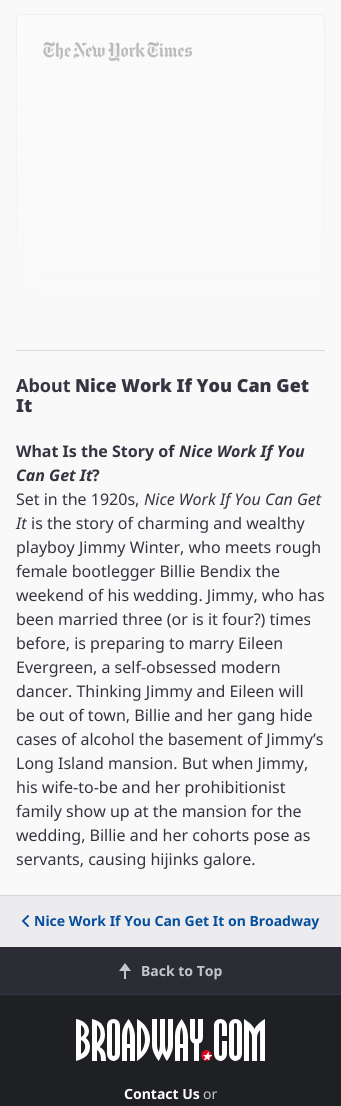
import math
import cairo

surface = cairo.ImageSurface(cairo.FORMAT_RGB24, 341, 1106)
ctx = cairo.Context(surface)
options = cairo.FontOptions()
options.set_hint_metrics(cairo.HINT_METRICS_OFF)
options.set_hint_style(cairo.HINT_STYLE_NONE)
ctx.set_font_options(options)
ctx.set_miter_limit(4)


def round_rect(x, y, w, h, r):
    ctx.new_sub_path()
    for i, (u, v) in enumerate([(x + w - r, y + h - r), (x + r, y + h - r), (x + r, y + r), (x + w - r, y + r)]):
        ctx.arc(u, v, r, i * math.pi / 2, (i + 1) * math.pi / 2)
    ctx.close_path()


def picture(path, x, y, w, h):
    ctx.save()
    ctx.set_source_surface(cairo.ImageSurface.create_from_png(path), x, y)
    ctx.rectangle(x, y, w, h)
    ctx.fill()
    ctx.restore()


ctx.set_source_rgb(0.925, 0.925, 0.937)
ctx.paint()
ctx.set_source_rgb(0.976, 0.976, 0.98)
ctx.rectangle(0, 0, 341, 895)
ctx.fill()
ctx.set_source_rgb(1, 1, 1)
round_rect(16.5, 14.5, 308, 311, 5.5)
ctx.fill_preserve()
ctx.set_source_rgb(0.843, 0.847, 0.867)
ctx.set_line_width(1)
ctx.stroke()
picture("img1.png", 43, 41, 149, 21)
gradient = cairo.LinearGradient(170, -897, 171, 326)
gradient.add_color_stop_rgba(0.1, 0.976, 0.976, 0.98, 0)
gradient.add_color_stop_rgba(1, 0.976, 0.976, 0.98, 1)
ctx.set_source(gradient)
ctx.rectangle(16, 14, 309, 312)
ctx.fill()
ctx.set_source_rgb(0.843, 0.847, 0.867)
ctx.rectangle(16, 350, 309, 1)
ctx.fill()
ctx.select_font_face("Noto Sans", cairo.FONT_SLANT_NORMAL, cairo.FONT_WEIGHT_BOLD)
ctx.set_font_size(18)
ctx.set_source_rgb(0.204, 0.208, 0.251)
ctx.move_to(16, 392)
ctx.show_text("About")
ctx.select_font_face("Noto Sans Black")
ctx.move_to(75, 392)
ctx.show_text("Nice Work If You Can Get")
ctx.move_to(16, 412)
ctx.show_text("It")
ctx.select_font_face("Noto Sans", cairo.FONT_SLANT_NORMAL, cairo.FONT_WEIGHT_BOLD)
ctx.set_font_size(16)
ctx.move_to(16, 457)
ctx.show_text("What Is the Story of")
ctx.select_font_face("Noto Sans", cairo.FONT_SLANT_ITALIC, cairo.FONT_WEIGHT_BOLD)
ctx.move_to(179, 457)
ctx.show_text("Nice Work If You")
ctx.move_to(16, 481)
ctx.show_text("Can Get It")
ctx.select_font_face("Noto Sans", cairo.FONT_SLANT_NORMAL, cairo.FONT_WEIGHT_BOLD)
ctx.move_to(92, 481)
ctx.show_text("?")
ctx.select_font_face("Noto Sans")
ctx.move_to(16, 505)
ctx.show_text("Set in the 1920s,")
ctx.select_font_face("Noto Sans", cairo.FONT_SLANT_ITALIC)
ctx.move_to(144, 505)
ctx.show_text("Nice Work If You Can Get")
ctx.move_to(16, 529)
ctx.show_text("It")
ctx.select_font_face("Noto Sans")
ctx.move_to(31, 529)
ctx.show_text("is the story of charming and wealthy")
ctx.move_to(16, 553)
ctx.show_text("playboy Jimmy Winter, who meets rough")
ctx.move_to(16, 577)
ctx.show_text("female bootlegger Billie Bendix the")
ctx.move_to(16, 601)
ctx.show_text("weekend of his wedding. Jimmy, who has")
ctx.move_to(16, 625)
ctx.show_text("been married three (or is it four?) times")
ctx.move_to(16, 649)
ctx.show_text("before, is preparing to marry Eileen")
ctx.move_to(16, 673)
ctx.show_text("Evergreen, a self-obsessed modern")
ctx.move_to(16, 697)
ctx.show_text("dancer. Thinking Jimmy and Eileen will")
ctx.move_to(16, 721)
ctx.show_text("be out of town, Billie and her gang hide")
ctx.move_to(16, 745)
ctx.show_text("cases of alcohol the basement of Jimmy’s")
ctx.move_to(16, 769)
ctx.show_text("Long Island mansion. But when Jimmy,")
ctx.move_to(16, 793)
ctx.show_text("his wife-to-be and her prohibitionist")
ctx.move_to(16, 817)
ctx.show_text("family show up at the mansion for the")
ctx.move_to(16, 841)
ctx.show_text("wedding, Billie and her cohorts pose as")
ctx.move_to(16, 865)
ctx.show_text("servants, causing hijinks galore.")
ctx.set_source_rgb(0.843, 0.847, 0.867)
ctx.rectangle(0, 895, 341, 1)
ctx.fill()
picture("img2.png", 22, 915, 7, 12)
ctx.select_font_face("Noto Sans", cairo.FONT_SLANT_NORMAL, cairo.FONT_WEIGHT_BOLD)
ctx.set_font_size(14)
ctx.set_source_rgb(0.024, 0.31, 0.62)
ctx.move_to(34, 926)
ctx.show_text("Nice Work If You Can Get It on Broadway")
ctx.set_source_rgb(0.169, 0.173, 0.204)
ctx.rectangle(0, 947, 341, 47)
ctx.fill()
ctx.set_source_rgb(0.204, 0.208, 0.251)
ctx.rectangle(0, 994, 341, 1)
ctx.fill()
picture("img3.png", 119, 963, 12, 16)
ctx.set_source_rgb(0.773, 0.776, 0.804)
ctx.move_to(141, 976)
ctx.show_text("Back to Top")
ctx.set_source_rgb(0.122, 0.125, 0.137)
ctx.rectangle(0, 995, 341, 111)
ctx.fill()
picture("img4.png", 76, 1019, 189, 42)
ctx.set_source_rgb(1, 1, 1)
ctx.move_to(124, 1099)
ctx.show_text("Contact Us")
ctx.select_font_face("Noto Sans")
ctx.set_source_rgb(0.773, 0.776, 0.804)
ctx.move_to(203, 1099)
ctx.show_text("or")
surface.write_to_png("page.png")
